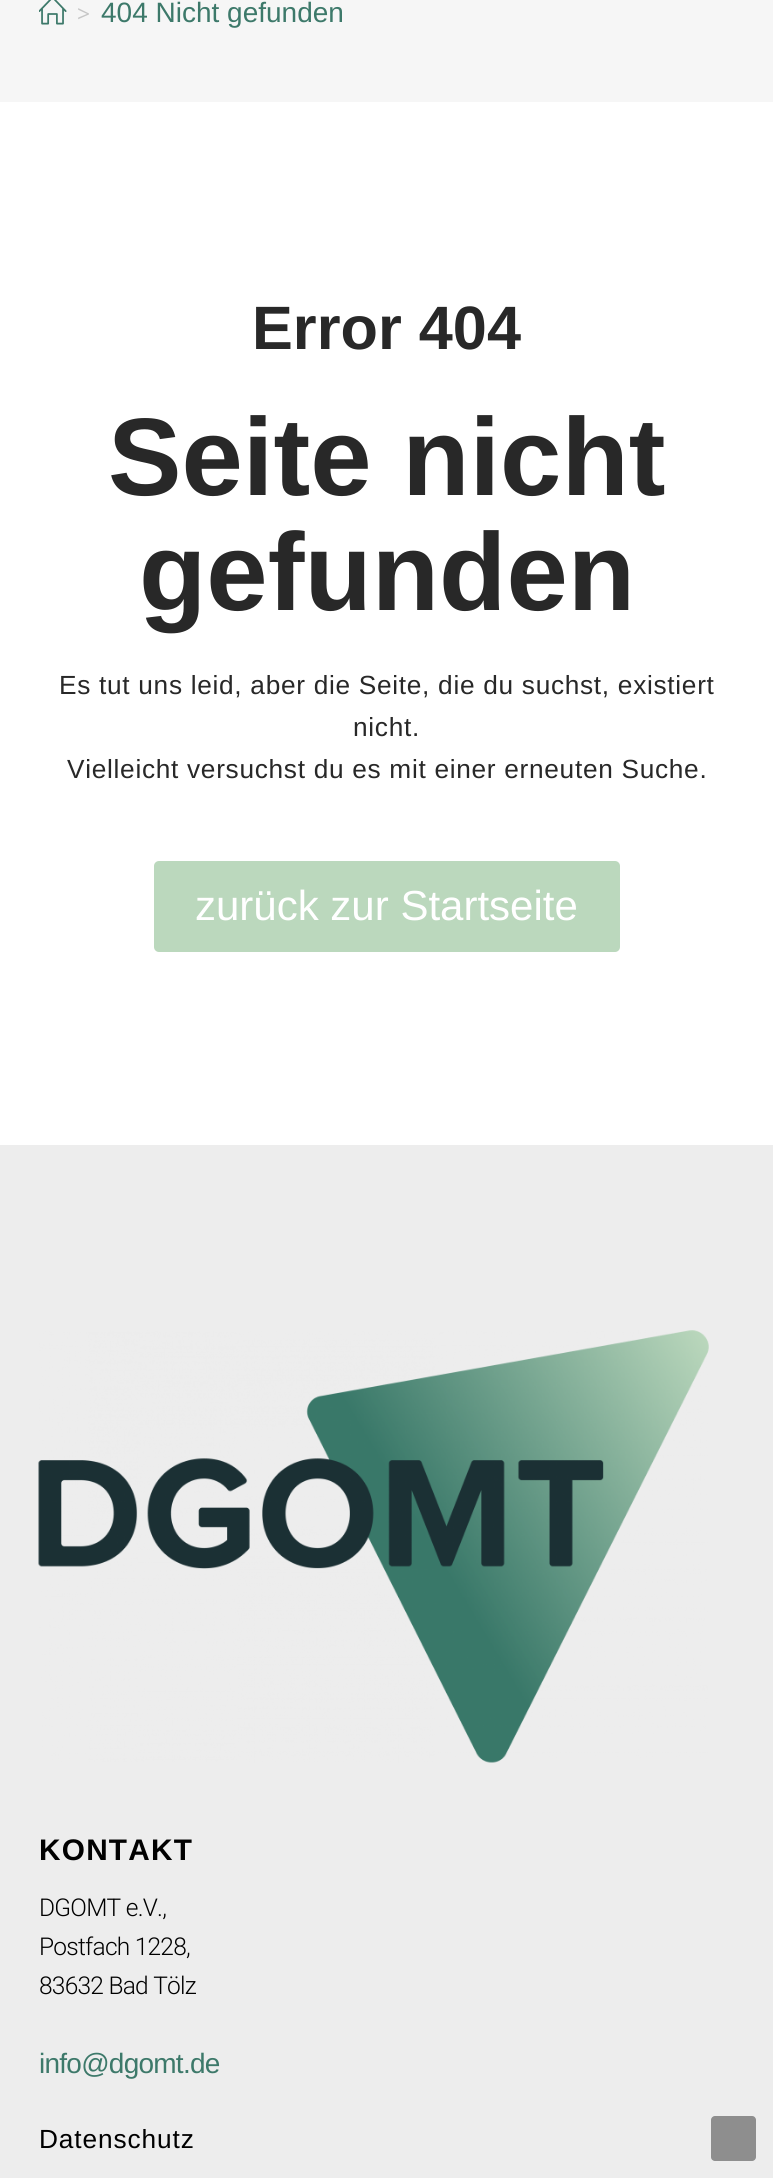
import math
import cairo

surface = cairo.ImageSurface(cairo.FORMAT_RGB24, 773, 2178)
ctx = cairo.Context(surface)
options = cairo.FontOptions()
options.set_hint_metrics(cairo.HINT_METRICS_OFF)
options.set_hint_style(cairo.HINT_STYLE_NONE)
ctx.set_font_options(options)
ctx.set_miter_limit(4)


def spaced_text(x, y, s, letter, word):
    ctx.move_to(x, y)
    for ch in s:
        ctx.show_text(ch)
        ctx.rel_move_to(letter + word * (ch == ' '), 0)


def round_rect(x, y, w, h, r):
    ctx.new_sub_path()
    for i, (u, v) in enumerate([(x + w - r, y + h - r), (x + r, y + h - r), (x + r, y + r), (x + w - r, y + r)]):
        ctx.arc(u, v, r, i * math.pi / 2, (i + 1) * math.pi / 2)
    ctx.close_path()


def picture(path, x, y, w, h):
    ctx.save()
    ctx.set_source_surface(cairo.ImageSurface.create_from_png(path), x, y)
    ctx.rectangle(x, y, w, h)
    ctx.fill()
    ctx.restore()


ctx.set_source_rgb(1, 1, 1)
ctx.paint()
ctx.set_source_rgb(0.961, 0.961, 0.961)
ctx.rectangle(0, 0, 773, 102)
ctx.fill()
picture("img1.png", 39, 0, 28, 25)
ctx.select_font_face("Open Sans")
ctx.set_font_size(23)
ctx.set_source_rgb(0.776, 0.776, 0.776)
ctx.move_to(77, 22)
ctx.show_text(">")
ctx.select_font_face("Liberation Sans")
ctx.set_font_size(28)
ctx.set_source_rgb(0.239, 0.475, 0.416)
ctx.move_to(101, 22)
ctx.show_text("404 Nicht gefunden")
ctx.select_font_face("Liberation Sans", cairo.FONT_SLANT_NORMAL, cairo.FONT_WEIGHT_BOLD)
ctx.set_font_size(61.25)
ctx.set_source_rgb(0.157, 0.157, 0.157)
ctx.move_to(252, 349)
ctx.show_text("Error 404")
ctx.set_font_size(110.25)
ctx.move_to(108, 495)
ctx.show_text("Seite nicht")
ctx.move_to(139, 610)
ctx.show_text("gefunden")
ctx.select_font_face("Liberation Sans")
ctx.set_font_size(26.25)
spaced_text(59, 694, "Es tut uns leid, aber die Seite, die du suchst, existiert", 0.7, 0)
spaced_text(353, 736, "nicht.", 0.7, 0)
spaced_text(67, 778, "Vielleicht versuchst du es mit einer erneuten Suche.", 0.7, 0)
ctx.set_source_rgb(0.733, 0.847, 0.741)
round_rect(154, 861, 466, 91, 5)
ctx.fill()
ctx.set_font_size(42)
ctx.set_source_rgb(1, 1, 1)
ctx.move_to(195, 920)
ctx.show_text("zurück zur Startseite")
ctx.set_source_rgb(0.929, 0.929, 0.929)
ctx.rectangle(0, 1145, 773, 1033)
ctx.fill()
picture("img2.png", 38, 1330, 671, 433)
ctx.select_font_face("Liberation Sans", cairo.FONT_SLANT_NORMAL, cairo.FONT_WEIGHT_BOLD)
ctx.set_font_size(29.75)
ctx.set_source_rgb(0, 0, 0)
spaced_text(39, 1860, "KONTAKT", 1.25, 0)
ctx.select_font_face("Roboto Light")
ctx.set_font_size(24.5)
spaced_text(39, 1916, "DGOMT e.V.,", -0.75, 0)
spaced_text(39, 1955, "Postfach 1228,", -0.75, 0)
spaced_text(39, 1994, "83632 Bad Tölz", -0.75, 0)
ctx.select_font_face("Liberation Sans")
ctx.set_font_size(28)
ctx.set_source_rgb(0.239, 0.475, 0.416)
spaced_text(39, 2073, "info@dgomt.de", -0.75, 0)
ctx.set_font_size(26.25)
ctx.set_source_rgb(0, 0, 0)
spaced_text(39, 2148, "Datenschutz", 0.9, 0)
ctx.set_source_rgb(0.557, 0.557, 0.557)
round_rect(711, 2116, 45, 45, 4)
ctx.fill()
surface.write_to_png("page.png")
